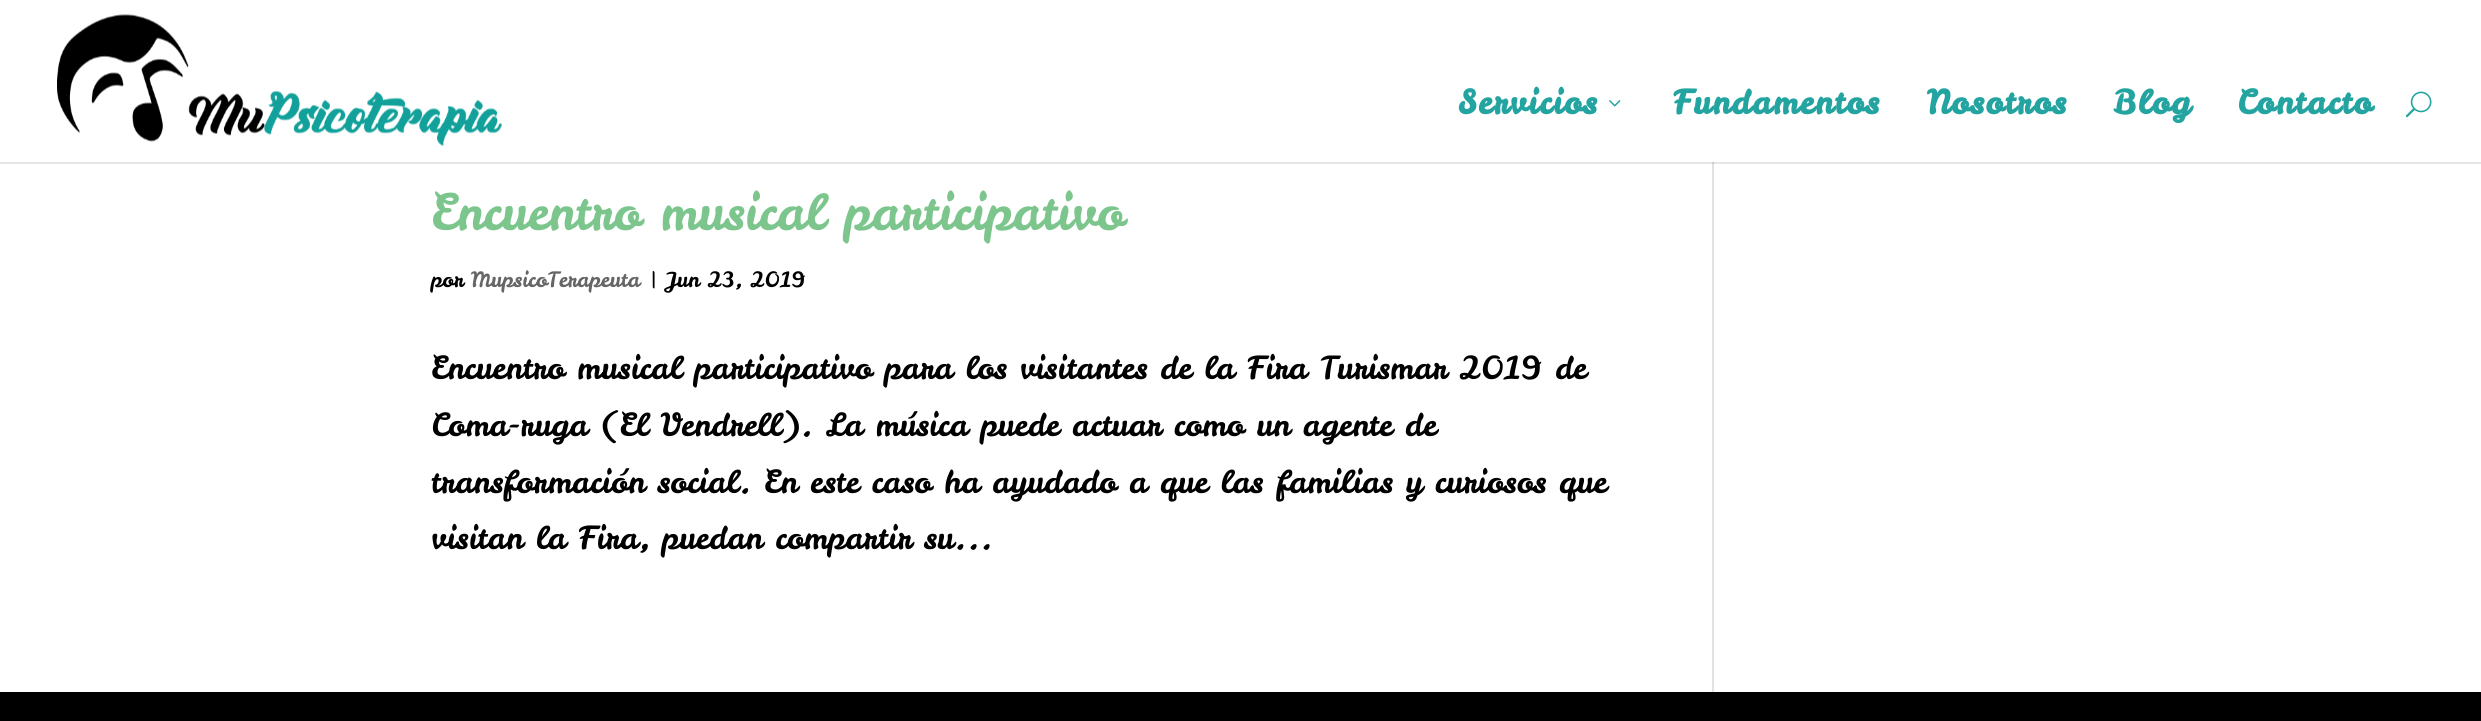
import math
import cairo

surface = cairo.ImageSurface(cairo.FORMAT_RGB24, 2481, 721)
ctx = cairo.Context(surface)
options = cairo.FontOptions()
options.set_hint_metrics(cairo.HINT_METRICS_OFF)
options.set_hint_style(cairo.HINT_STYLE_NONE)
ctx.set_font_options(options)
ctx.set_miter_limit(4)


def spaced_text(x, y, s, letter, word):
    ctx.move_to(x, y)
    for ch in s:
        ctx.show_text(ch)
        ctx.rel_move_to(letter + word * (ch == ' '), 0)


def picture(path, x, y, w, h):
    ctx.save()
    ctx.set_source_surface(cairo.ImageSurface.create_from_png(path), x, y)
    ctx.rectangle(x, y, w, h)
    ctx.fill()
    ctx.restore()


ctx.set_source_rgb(1, 1, 1)
ctx.paint()
picture("img1.png", 57, 14, 445, 133)
ctx.select_font_face("Leckerli One", cairo.FONT_SLANT_NORMAL, cairo.FONT_WEIGHT_BOLD)
ctx.set_font_size(33)
ctx.set_source_rgb(0.137, 0.643, 0.631)
spaced_text(1458, 114, "Servicios", 1.5, 0)
picture("img2.png", 1609, 100, 12, 7)
spaced_text(1673, 114, "Fundamentos", 1.5, 0)
spaced_text(1927, 114, "Nosotros", 1.5, 0)
spaced_text(2113, 114, "Blog", 1.5, 0)
spaced_text(2237, 114, "Contacto", 1.5, 0)
picture("img3.png", 2405, 91, 27, 27)
ctx.set_source_rgb(0.902, 0.902, 0.902)
ctx.rectangle(0, 162, 2481, 2)
ctx.fill()
ctx.select_font_face("Leckerli One")
ctx.set_font_size(49.5)
ctx.set_source_rgb(0.486, 0.776, 0.553)
ctx.move_to(431, 230)
ctx.show_text("Encuentro musical participativo")
ctx.set_font_size(21)
ctx.set_source_rgb(0, 0, 0)
ctx.move_to(431, 287)
ctx.show_text("por")
ctx.set_source_rgb(0.4, 0.4, 0.4)
ctx.move_to(471, 287)
ctx.show_text("MupsicoTerapeuta")
ctx.set_source_rgb(0, 0, 0)
ctx.move_to(649, 287)
ctx.show_text("| Jun 23, 2019")
ctx.set_font_size(31.5)
ctx.move_to(431, 379)
ctx.show_text("Encuentro musical participativo para los visitantes de la Fira Turismar 2019 de")
ctx.move_to(431, 436)
ctx.show_text("Coma-ruga (El Vendrell). La música puede actuar como un agente de")
ctx.move_to(431, 493)
ctx.show_text("transformación social. En este caso ha ayudado a que las familias y curiosos que")
ctx.move_to(431, 549)
ctx.show_text("visitan la Fira, puedan compartir su...")
ctx.set_source_rgb(0.886, 0.886, 0.886)
ctx.rectangle(1712, 164, 2, 528)
ctx.fill()
ctx.set_source_rgb(0.796, 0.796, 0.796)
ctx.rectangle(1712, 162, 2, 2)
ctx.fill()
ctx.set_source_rgb(0, 0, 0)
ctx.rectangle(0, 692, 2481, 29)
ctx.fill()
surface.write_to_png("page.png")
